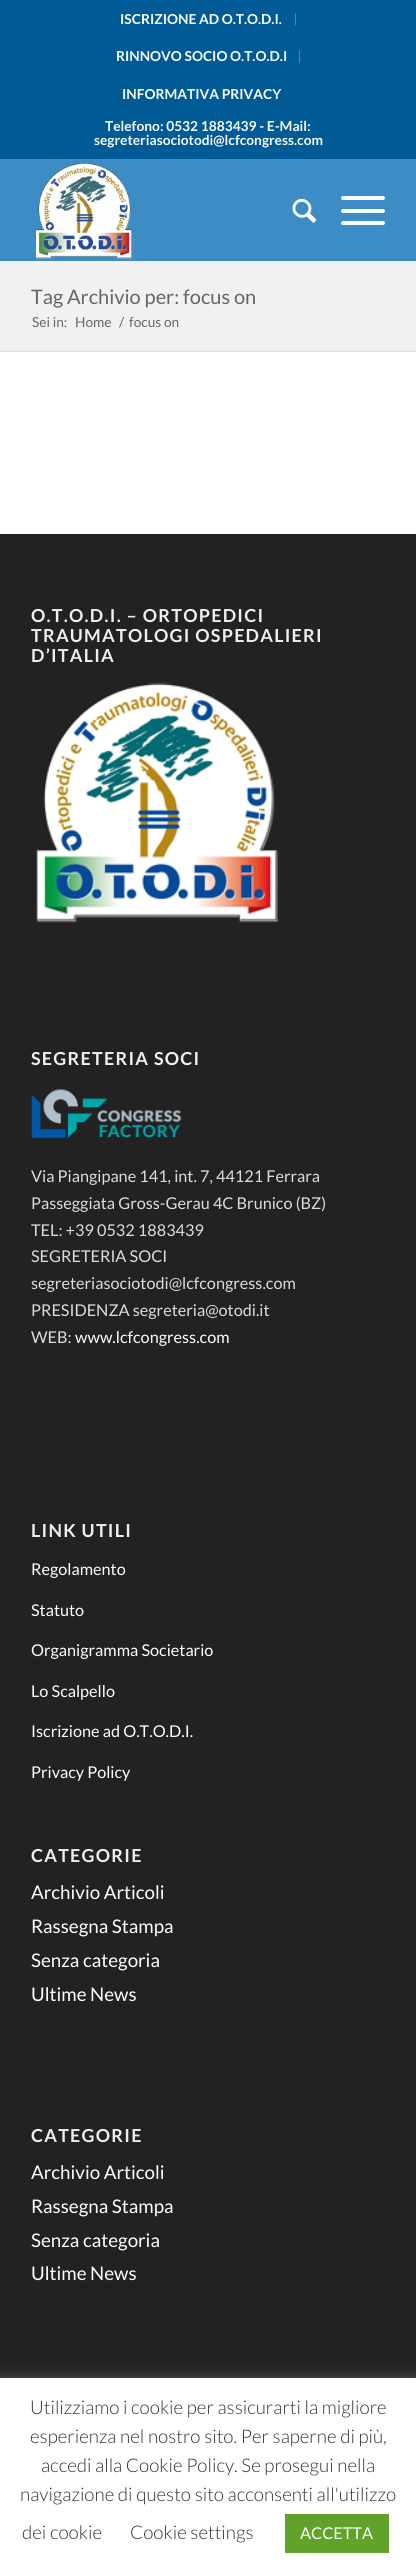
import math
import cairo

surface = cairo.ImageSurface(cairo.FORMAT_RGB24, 416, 2573)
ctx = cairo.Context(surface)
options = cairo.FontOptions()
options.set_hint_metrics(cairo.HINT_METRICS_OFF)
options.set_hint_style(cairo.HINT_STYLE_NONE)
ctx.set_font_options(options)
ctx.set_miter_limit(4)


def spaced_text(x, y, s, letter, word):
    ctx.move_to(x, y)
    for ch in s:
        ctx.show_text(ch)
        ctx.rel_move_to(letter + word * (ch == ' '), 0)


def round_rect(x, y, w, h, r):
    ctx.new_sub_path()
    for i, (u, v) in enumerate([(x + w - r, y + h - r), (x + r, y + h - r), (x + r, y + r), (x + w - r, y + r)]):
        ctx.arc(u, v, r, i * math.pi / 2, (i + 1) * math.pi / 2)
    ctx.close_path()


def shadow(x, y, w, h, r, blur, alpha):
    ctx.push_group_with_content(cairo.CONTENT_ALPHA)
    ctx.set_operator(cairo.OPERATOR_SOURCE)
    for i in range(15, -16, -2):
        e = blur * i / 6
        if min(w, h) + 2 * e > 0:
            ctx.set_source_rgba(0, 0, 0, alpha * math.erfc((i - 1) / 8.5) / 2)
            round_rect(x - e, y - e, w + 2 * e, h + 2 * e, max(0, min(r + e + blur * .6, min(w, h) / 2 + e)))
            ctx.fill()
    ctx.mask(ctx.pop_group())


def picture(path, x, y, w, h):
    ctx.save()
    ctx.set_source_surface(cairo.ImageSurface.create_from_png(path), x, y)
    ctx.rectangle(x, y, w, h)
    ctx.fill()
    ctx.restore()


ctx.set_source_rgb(1, 1, 1)
ctx.paint()
ctx.set_source_rgb(0, 0.353, 0.588)
ctx.rectangle(0, 0, 416, 159)
ctx.fill()
ctx.set_source_rgb(0.235, 0.549, 0.773)
ctx.rectangle(295, 13, 1, 12)
ctx.fill()
ctx.select_font_face("Lato", cairo.FONT_SLANT_NORMAL, cairo.FONT_WEIGHT_BOLD)
ctx.set_font_size(13.75)
ctx.set_source_rgb(0.969, 0.988, 1)
ctx.move_to(120, 24)
ctx.show_text("ISCRIZIONE AD O.T.O.D.I.")
ctx.set_source_rgb(0.235, 0.549, 0.773)
ctx.rectangle(299, 50, 1, 13)
ctx.fill()
ctx.set_source_rgb(0.969, 0.988, 1)
ctx.move_to(116, 61)
ctx.show_text("RINNOVO SOCIO O.T.O.D.I")
ctx.move_to(122, 99)
ctx.show_text("INFORMATIVA PRIVACY")
ctx.move_to(105, 131)
ctx.show_text("Telefono: 0532 1883439 - E-Mail:")
ctx.move_to(94, 145)
ctx.show_text("segreteriasociotodi@lcfcongress.com")
ctx.set_source_rgb(0.235, 0.549, 0.773)
ctx.rectangle(0, 159, 416, 102)
ctx.fill()
picture("img1.png", 35, 163, 98, 96)
picture("img2.png", 292, 198, 25, 25)
ctx.set_source_rgb(0.969, 0.988, 1)
round_rect(341, 209, 44, 4, 2)
ctx.fill()
round_rect(341, 196, 44, 4, 2)
ctx.fill()
round_rect(341, 221, 44, 4, 2)
ctx.fill()
ctx.set_source_rgb(0.945, 0.945, 0.945)
ctx.rectangle(0, 261, 416, 90)
ctx.fill()
ctx.select_font_face("Lato")
ctx.set_font_size(20)
ctx.set_source_rgb(0.4, 0.4, 0.4)
ctx.move_to(31, 304)
ctx.show_text("Tag Archivio per: focus on")
ctx.set_font_size(13.75)
ctx.move_to(32, 327)
ctx.show_text("Sei in:")
ctx.move_to(75, 327)
ctx.show_text("Home")
ctx.move_to(119, 327)
ctx.show_text("/")
ctx.move_to(129, 327)
ctx.show_text("focus on")
ctx.set_source_rgb(0.882, 0.882, 0.882)
ctx.rectangle(0, 351, 416, 1)
ctx.fill()
ctx.set_source_rgb(0.133, 0.133, 0.133)
ctx.rectangle(0, 534, 416, 1844)
ctx.fill()
ctx.select_font_face("Lato", cairo.FONT_SLANT_NORMAL, cairo.FONT_WEIGHT_BOLD)
ctx.set_font_size(17.9)
ctx.set_source_rgb(0.937, 0.937, 0.937)
spaced_text(31, 622, "O.T.O.D.I. – ORTOPEDICI", 1.25, 0)
spaced_text(31, 642, "TRAUMATOLOGI OSPEDALIERI", 1.25, 0)
spaced_text(31, 662, "D’ITALIA", 1.25, 0)
picture("img3.png", 36, 682, 243, 241)
spaced_text(31, 1065, "SEGRETERIA SOCI", 1.25, 0)
picture("img4.png", 31, 1089, 151, 50)
ctx.select_font_face("Lato")
ctx.set_font_size(16.25)
ctx.set_source_rgb(0.867, 0.867, 0.867)
ctx.move_to(31, 1182)
ctx.show_text("Via Piangipane 141, int. 7, 44121 Ferrara")
ctx.move_to(31, 1209)
ctx.show_text("Passeggiata Gross-Gerau 4C Brunico (BZ)")
ctx.move_to(31, 1236)
ctx.show_text("TEL: +39 0532 1883439")
ctx.move_to(31, 1262)
ctx.show_text("SEGRETERIA SOCI")
ctx.move_to(31, 1289)
ctx.show_text("segreteriasociotodi@lcfcongress.com")
ctx.move_to(31, 1316)
ctx.show_text("PRESIDENZA segreteria@otodi.it")
ctx.move_to(31, 1343)
ctx.show_text("WEB:")
ctx.set_source_rgb(1, 1, 1)
ctx.move_to(75, 1343)
ctx.show_text("www.lcfcongress.com")
ctx.select_font_face("Lato", cairo.FONT_SLANT_NORMAL, cairo.FONT_WEIGHT_BOLD)
ctx.set_font_size(17.9)
ctx.set_source_rgb(0.937, 0.937, 0.937)
spaced_text(31, 1537, "LINK UTILI", 1.25, 0)
ctx.select_font_face("Lato")
ctx.set_font_size(16.25)
ctx.set_source_rgb(1, 1, 1)
ctx.move_to(31, 1575)
ctx.show_text("Regolamento")
ctx.move_to(31, 1616)
ctx.show_text("Statuto")
ctx.move_to(31, 1656)
ctx.show_text("Organigramma Societario")
ctx.move_to(31, 1697)
ctx.show_text("Lo Scalpello")
ctx.move_to(31, 1737)
ctx.show_text("Iscrizione ad O.T.O.D.I.")
ctx.move_to(31, 1778)
ctx.show_text("Privacy Policy")
ctx.select_font_face("Lato", cairo.FONT_SLANT_NORMAL, cairo.FONT_WEIGHT_BOLD)
ctx.set_font_size(17.9)
ctx.set_source_rgb(0.937, 0.937, 0.937)
spaced_text(31, 1862, "CATEGORIE", 1.25, 0)
ctx.select_font_face("Lato")
ctx.set_font_size(18.75)
ctx.set_source_rgb(1, 1, 1)
ctx.move_to(31, 1899)
ctx.show_text("Archivio Articoli")
ctx.move_to(31, 1933)
ctx.show_text("Rassegna Stampa")
ctx.move_to(31, 1967)
ctx.show_text("Senza categoria")
ctx.move_to(31, 2001)
ctx.show_text("Ultime News")
ctx.select_font_face("Lato", cairo.FONT_SLANT_NORMAL, cairo.FONT_WEIGHT_BOLD)
ctx.set_font_size(17.9)
ctx.set_source_rgb(0.937, 0.937, 0.937)
spaced_text(31, 2142, "CATEGORIE", 1.25, 0)
ctx.select_font_face("Lato")
ctx.set_font_size(18.75)
ctx.set_source_rgb(1, 1, 1)
ctx.move_to(31, 2179)
ctx.show_text("Archivio Articoli")
ctx.move_to(31, 2213)
ctx.show_text("Rassegna Stampa")
ctx.move_to(31, 2247)
ctx.show_text("Senza categoria")
ctx.move_to(31, 2280)
ctx.show_text("Ultime News")
ctx.set_source_rgb(0.675, 0.671, 0.671)
shadow(0, 2376, 416, 197, 0, 6, 0.3)
ctx.set_source_rgb(1, 1, 1)
ctx.rectangle(0, 2378, 416, 195)
ctx.fill()
ctx.select_font_face("Lato Light")
ctx.set_source_rgb(0.2, 0.2, 0.2)
ctx.move_to(30, 2414)
ctx.show_text("Utilizziamo i cookie per assicurarti la migliore")
ctx.move_to(30, 2443)
ctx.show_text("esperienza nel nostro sito. Per saperne di più,")
ctx.move_to(41, 2472)
ctx.show_text("accedi alla Cookie Policy. Se prosegui nella")
ctx.move_to(20, 2501)
ctx.show_text("navigazione di questo sito acconsenti all'utilizzo")
ctx.move_to(22, 2539)
ctx.show_text("dei cookie")
ctx.move_to(130, 2539)
ctx.show_text("Cookie settings")
ctx.set_source_rgb(0.38, 0.635, 0.161)
ctx.rectangle(285, 2514, 104, 39)
ctx.fill()
ctx.select_font_face("Lato")
ctx.set_font_size(16.25)
ctx.set_source_rgb(1, 1, 1)
ctx.move_to(300, 2539)
ctx.show_text("ACCETTA")
surface.write_to_png("page.png")
